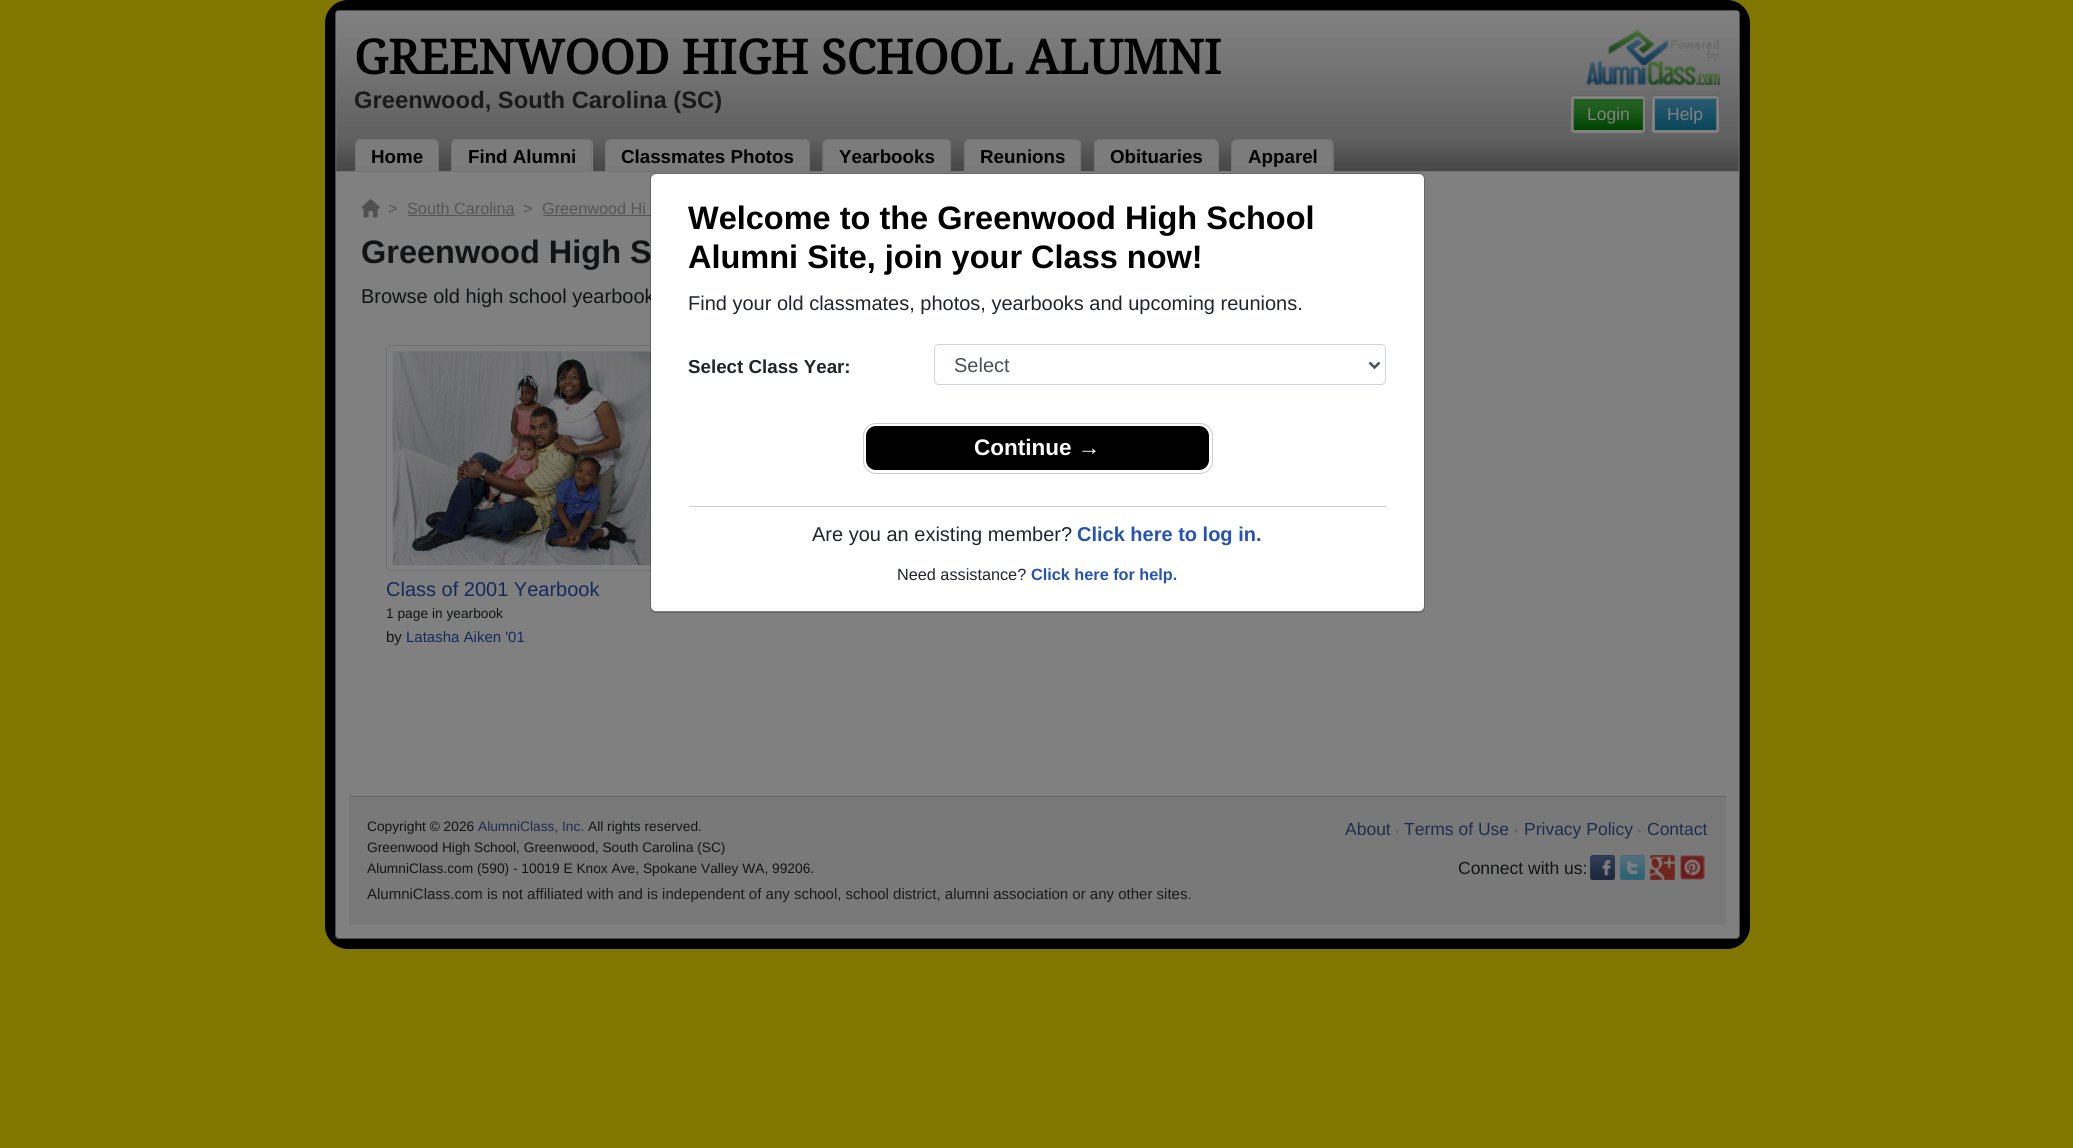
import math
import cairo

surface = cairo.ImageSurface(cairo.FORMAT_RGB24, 2073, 1148)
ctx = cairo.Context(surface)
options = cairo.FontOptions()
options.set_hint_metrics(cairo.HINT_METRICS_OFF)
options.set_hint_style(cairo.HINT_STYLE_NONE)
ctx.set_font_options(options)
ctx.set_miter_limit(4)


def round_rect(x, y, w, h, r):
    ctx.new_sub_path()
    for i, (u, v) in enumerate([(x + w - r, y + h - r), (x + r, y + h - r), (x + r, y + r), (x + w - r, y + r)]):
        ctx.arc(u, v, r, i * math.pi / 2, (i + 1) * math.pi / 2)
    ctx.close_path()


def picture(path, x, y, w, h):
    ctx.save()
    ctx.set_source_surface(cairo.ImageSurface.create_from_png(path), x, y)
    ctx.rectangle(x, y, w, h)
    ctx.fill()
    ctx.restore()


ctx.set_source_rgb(0.502, 0.463, 0)
ctx.paint()
round_rect(330, 5, 1415, 939, 18)
ctx.set_source_rgb(0, 0, 0)
ctx.set_line_width(10)
ctx.stroke()
ctx.set_source_rgb(0.502, 0.502, 0.502)
round_rect(335.5, 10.5, 1404, 928, 3.5)
ctx.fill_preserve()
ctx.set_source_rgb(0.302, 0.302, 0.302)
ctx.set_line_width(1)
ctx.stroke()
picture("img1.png", 336, 11, 1403, 161)
ctx.select_font_face("Droid Serif", cairo.FONT_SLANT_NORMAL, cairo.FONT_WEIGHT_BOLD)
ctx.set_font_size(47.5)
ctx.set_source_rgb(0, 0, 0)
ctx.move_to(354, 74)
ctx.show_text("GREENWOOD HIGH SCHOOL ALUMNI")
ctx.select_font_face("Liberation Sans", cairo.FONT_SLANT_NORMAL, cairo.FONT_WEIGHT_BOLD)
ctx.set_font_size(23.75)
ctx.set_source_rgb(0.102, 0.102, 0.102)
ctx.move_to(354, 108)
ctx.show_text("Greenwood, South Carolina (SC)")
picture("img2.png", 1586, 30, 134, 55)
ctx.set_source_rgb(0.502, 0.502, 0.502)
round_rect(1570.5, 95.5, 75, 38, 3.5)
ctx.fill_preserve()
ctx.set_source_rgb(0.4, 0.4, 0.4)
ctx.stroke()
ctx.set_source_rgb(0.129, 0.373, 0.129)
ctx.rectangle(1574, 99, 69, 31)
ctx.fill()
picture("img3.png", 1573, 105, 70, 25)
ctx.select_font_face("Liberation Sans")
ctx.set_font_size(17.5)
ctx.set_source_rgb(0.502, 0.502, 0.502)
ctx.move_to(1587, 120)
ctx.show_text("Login")
round_rect(1651.5, 95.5, 68, 38, 3.5)
ctx.fill_preserve()
ctx.set_source_rgb(0.4, 0.4, 0.4)
ctx.stroke()
picture("img4.png", 1655, 98, 62, 32)
ctx.set_source_rgb(0.502, 0.502, 0.502)
ctx.move_to(1667, 120)
ctx.show_text("Help")
picture("img5.png", 355, 139, 84, 32)
ctx.set_source_rgb(0.447, 0.447, 0.447)
ctx.set_fill_rule(cairo.FILL_RULE_EVEN_ODD)
ctx.new_path()
ctx.move_to(361, 139)
ctx.line_to(432, 139)
ctx.curve_to(436, 139, 439, 142, 439, 145)
ctx.line_to(439, 171)
ctx.line_to(355, 171)
ctx.line_to(355, 145)
ctx.curve_to(355, 142, 358, 139, 361, 139)
ctx.close_path()
ctx.move_to(361, 140)
ctx.line_to(432, 140)
ctx.curve_to(435, 140, 438, 142, 438, 145)
ctx.line_to(438, 171)
ctx.line_to(356, 171)
ctx.line_to(356, 145)
ctx.curve_to(356, 142, 358, 140, 361, 140)
ctx.close_path()
ctx.fill()
ctx.select_font_face("Liberation Sans", cairo.FONT_SLANT_NORMAL, cairo.FONT_WEIGHT_BOLD)
ctx.set_font_size(18.75)
ctx.set_source_rgb(0, 0, 0)
ctx.move_to(371, 163)
ctx.show_text("Home")
ctx.set_source_rgb(0.502, 0.502, 0.502)
ctx.new_path()
ctx.move_to(457, 139)
ctx.line_to(587, 139)
ctx.curve_to(590.5, 139, 593, 141.5, 593, 145)
ctx.line_to(593, 171)
ctx.line_to(451, 171)
ctx.line_to(451, 145)
ctx.curve_to(451, 141.5, 453.5, 139, 457, 139)
ctx.close_path()
ctx.fill()
picture("img6.png", 451, 139, 141, 32)
ctx.set_source_rgb(0.447, 0.447, 0.447)
ctx.new_path()
ctx.move_to(458, 139)
ctx.line_to(586, 139)
ctx.curve_to(590, 139, 592, 142, 592, 145)
ctx.line_to(592, 171)
ctx.line_to(451, 171)
ctx.line_to(451, 145)
ctx.curve_to(451, 142, 454, 139, 458, 139)
ctx.close_path()
ctx.move_to(458, 140)
ctx.line_to(586, 140)
ctx.curve_to(589, 140, 591, 142, 591, 145)
ctx.line_to(591, 171)
ctx.line_to(452, 171)
ctx.line_to(452, 145)
ctx.curve_to(452, 142, 455, 140, 458, 140)
ctx.close_path()
ctx.fill()
ctx.set_source_rgb(0, 0, 0)
ctx.move_to(468, 163)
ctx.show_text("Find Alumni")
picture("img7.png", 605, 139, 205, 32)
ctx.set_source_rgb(0.447, 0.447, 0.447)
ctx.new_path()
ctx.move_to(611, 139)
ctx.line_to(804, 139)
ctx.curve_to(807, 139, 810, 142, 810, 145)
ctx.line_to(810, 171)
ctx.line_to(605, 171)
ctx.line_to(605, 145)
ctx.curve_to(605, 142, 608, 139, 611, 139)
ctx.close_path()
ctx.move_to(611, 140)
ctx.line_to(804, 140)
ctx.curve_to(807, 140, 809, 142, 809, 145)
ctx.line_to(809, 171)
ctx.line_to(606, 171)
ctx.line_to(606, 145)
ctx.curve_to(606, 142, 608, 140, 611, 140)
ctx.close_path()
ctx.fill()
ctx.set_source_rgb(0, 0, 0)
ctx.move_to(621, 163)
ctx.show_text("Classmates Photos")
picture("img8.png", 822, 139, 130, 32)
ctx.set_source_rgb(0.447, 0.447, 0.447)
ctx.new_path()
ctx.move_to(829, 139)
ctx.line_to(945, 139)
ctx.curve_to(948, 139, 951, 142, 951, 145)
ctx.line_to(951, 171)
ctx.line_to(822, 171)
ctx.line_to(822, 145)
ctx.curve_to(822, 142, 825, 139, 829, 139)
ctx.close_path()
ctx.move_to(829, 140)
ctx.line_to(945, 140)
ctx.curve_to(948, 140, 950, 142, 950, 145)
ctx.line_to(950, 171)
ctx.line_to(824, 171)
ctx.line_to(824, 145)
ctx.curve_to(824, 142, 826, 140, 829, 140)
ctx.close_path()
ctx.fill()
ctx.set_source_rgb(0, 0, 0)
ctx.move_to(839, 163)
ctx.show_text("Yearbooks")
picture("img9.png", 963, 139, 119, 32)
ctx.set_source_rgb(0.447, 0.447, 0.447)
ctx.new_path()
ctx.move_to(970, 139)
ctx.line_to(1075, 139)
ctx.curve_to(1078, 139, 1081, 142, 1081, 145)
ctx.line_to(1081, 171)
ctx.line_to(964, 171)
ctx.line_to(964, 145)
ctx.curve_to(964, 142, 967, 139, 970, 139)
ctx.close_path()
ctx.move_to(970, 140)
ctx.line_to(1075, 140)
ctx.curve_to(1078, 140, 1080, 142, 1080, 145)
ctx.line_to(1080, 171)
ctx.line_to(965, 171)
ctx.line_to(965, 145)
ctx.curve_to(965, 142, 967, 140, 970, 140)
ctx.close_path()
ctx.fill()
ctx.set_source_rgb(0, 0, 0)
ctx.move_to(980, 163)
ctx.show_text("Reunions")
picture("img10.png", 1093, 139, 126, 32)
ctx.set_source_rgb(0.447, 0.447, 0.447)
ctx.new_path()
ctx.move_to(1100, 139)
ctx.line_to(1212, 139)
ctx.curve_to(1216, 139, 1219, 142, 1219, 145)
ctx.line_to(1219, 171)
ctx.line_to(1094, 171)
ctx.line_to(1094, 145)
ctx.curve_to(1094, 142, 1097, 139, 1100, 139)
ctx.close_path()
ctx.move_to(1100, 140)
ctx.line_to(1212, 140)
ctx.curve_to(1215, 140, 1218, 142, 1218, 145)
ctx.line_to(1218, 171)
ctx.line_to(1095, 171)
ctx.line_to(1095, 145)
ctx.curve_to(1095, 142, 1097, 140, 1100, 140)
ctx.close_path()
ctx.fill()
ctx.set_source_rgb(0, 0, 0)
ctx.move_to(1110, 163)
ctx.show_text("Obituaries")
picture("img11.png", 1231, 139, 103, 32)
ctx.set_source_rgb(0.447, 0.447, 0.447)
ctx.new_path()
ctx.move_to(1238, 139)
ctx.line_to(1328, 139)
ctx.curve_to(1331, 139, 1334, 142, 1334, 145)
ctx.line_to(1334, 171)
ctx.line_to(1231, 171)
ctx.line_to(1231, 145)
ctx.curve_to(1231, 142, 1234, 139, 1238, 139)
ctx.close_path()
ctx.move_to(1238, 140)
ctx.line_to(1328, 140)
ctx.curve_to(1330, 140, 1332, 142, 1332, 145)
ctx.line_to(1332, 171)
ctx.line_to(1232, 171)
ctx.line_to(1232, 145)
ctx.curve_to(1232, 142, 1235, 140, 1238, 140)
ctx.close_path()
ctx.fill()
ctx.set_source_rgb(0, 0, 0)
ctx.move_to(1248, 163)
ctx.show_text("Apparel")
picture("img12.png", 361, 198, 19, 20)
ctx.select_font_face("Liberation Sans")
ctx.set_font_size(16.25)
ctx.set_source_rgb(0.333, 0.333, 0.333)
ctx.move_to(388, 214)
ctx.show_text(">")
ctx.move_to(407, 214)
ctx.show_text("South Carolina")
ctx.rectangle(408, 215, 107, 1)
ctx.fill()
ctx.move_to(523, 214)
ctx.show_text(">")
ctx.move_to(542, 214)
ctx.show_text("Greenwood Hi")
ctx.rectangle(543, 215, 108, 1)
ctx.fill()
ctx.select_font_face("Liberation Sans", cairo.FONT_SLANT_NORMAL, cairo.FONT_WEIGHT_BOLD)
ctx.set_font_size(32.5)
ctx.set_source_rgb(0.067, 0.075, 0.082)
ctx.move_to(361, 263)
ctx.show_text("Greenwood High S")
ctx.select_font_face("Liberation Sans")
ctx.set_font_size(20)
ctx.move_to(361, 303)
ctx.show_text("Browse old high school yearbook")
round_rect(386.5, 345.5, 296, 225, 4.5)
ctx.set_source_rgb(0.435, 0.443, 0.451)
ctx.stroke()
picture("img13.png", 392, 351, 259, 214)
ctx.set_source_rgb(0.075, 0.165, 0.357)
ctx.move_to(386, 596)
ctx.show_text("Class of 2001 Yearbook")
ctx.set_font_size(13.75)
ctx.set_source_rgb(0.067, 0.075, 0.082)
ctx.move_to(386, 618)
ctx.show_text("1 page in yearbook")
ctx.set_font_size(15)
ctx.move_to(386, 642)
ctx.show_text("by")
ctx.set_source_rgb(0.075, 0.165, 0.357)
ctx.move_to(406, 642)
ctx.show_text("Latasha Aiken '01")
ctx.set_source_rgb(0.475, 0.475, 0.475)
ctx.rectangle(349, 797, 1377, 128)
ctx.fill()
ctx.set_source_rgb(0.4, 0.4, 0.4)
ctx.rectangle(349, 796, 1377, 1)
ctx.fill()
ctx.set_font_size(13.75)
ctx.set_source_rgb(0.067, 0.075, 0.082)
ctx.move_to(367, 831)
ctx.show_text("Copyright © 2026")
ctx.set_source_rgb(0.118, 0.176, 0.298)
ctx.move_to(478, 831)
ctx.show_text("AlumniClass, Inc.")
ctx.set_source_rgb(0.067, 0.075, 0.082)
ctx.move_to(588, 831)
ctx.show_text("All rights reserved.")
ctx.move_to(367, 852)
ctx.show_text("Greenwood High School, Greenwood, South Carolina (SC)")
ctx.move_to(367, 873)
ctx.show_text("AlumniClass.com (590) - 10019 E Knox Ave, Spokane Valley WA, 99206.")
ctx.set_font_size(15)
ctx.set_source_rgb(0.102, 0.102, 0.102)
ctx.move_to(367, 899)
ctx.show_text("AlumniClass.com is not affiliated with and is independent of any school, school district, alumni association or any other sites.")
ctx.set_font_size(17.5)
ctx.set_source_rgb(0.118, 0.176, 0.298)
ctx.move_to(1345, 835)
ctx.show_text("About")
ctx.set_font_size(12)
ctx.set_source_rgb(0.4, 0.4, 0.4)
ctx.move_to(1395, 835)
ctx.show_text("•")
ctx.set_font_size(17.5)
ctx.set_source_rgb(0.118, 0.176, 0.298)
ctx.move_to(1404, 835)
ctx.show_text("Terms of Use")
ctx.set_font_size(12)
ctx.set_source_rgb(0.4, 0.4, 0.4)
ctx.move_to(1514, 835)
ctx.show_text("•")
ctx.set_font_size(17.5)
ctx.set_source_rgb(0.118, 0.176, 0.298)
ctx.move_to(1524, 835)
ctx.show_text("Privacy Policy")
ctx.set_font_size(12)
ctx.set_source_rgb(0.4, 0.4, 0.4)
ctx.move_to(1637, 835)
ctx.show_text("•")
ctx.set_font_size(17.5)
ctx.set_source_rgb(0.118, 0.176, 0.298)
ctx.move_to(1647, 835)
ctx.show_text("Contact")
ctx.set_source_rgb(0.067, 0.075, 0.082)
ctx.move_to(1458, 874)
ctx.show_text("Connect with us:")
picture("img14.png", 1590, 855, 25, 25)
picture("img15.png", 1620, 855, 25, 25)
picture("img16.png", 1650, 855, 25, 25)
picture("img17.png", 1680, 855, 25, 25)
ctx.set_source_rgb(1, 1, 1)
round_rect(651, 174, 773, 437, 5)
ctx.fill()
round_rect(650.5, 173.5, 774, 439, 5.5)
ctx.set_source_rgba(0, 0, 0, 0.2)
ctx.stroke()
ctx.select_font_face("Liberation Sans", cairo.FONT_SLANT_NORMAL, cairo.FONT_WEIGHT_BOLD)
ctx.set_font_size(32.5)
ctx.set_source_rgb(0, 0, 0)
ctx.move_to(688, 229)
ctx.show_text("Welcome to the Greenwood High School")
ctx.move_to(688, 268)
ctx.show_text("Alumni Site, join your Class now!")
ctx.select_font_face("Liberation Sans")
ctx.set_font_size(20)
ctx.set_source_rgb(0.129, 0.145, 0.161)
ctx.move_to(688, 310)
ctx.show_text("Find your old classmates, photos, yearbooks and upcoming reunions.")
ctx.select_font_face("Liberation Sans", cairo.FONT_SLANT_NORMAL, cairo.FONT_WEIGHT_BOLD)
ctx.set_font_size(18.75)
ctx.move_to(688, 373)
ctx.show_text("Select Class Year:")
round_rect(934.5, 344.5, 451, 40, 4.5)
ctx.set_source_rgb(0.808, 0.831, 0.855)
ctx.stroke()
ctx.new_path()
ctx.move_to(1369.5, 362.5)
ctx.line_to(1374.5, 367.5)
ctx.line_to(1379.5, 362.5)
ctx.set_source_rgb(0.286, 0.314, 0.341)
ctx.set_line_width(2.5)
ctx.stroke()
ctx.select_font_face("Liberation Sans")
ctx.set_font_size(20)
ctx.move_to(954, 372)
ctx.show_text("Select")
round_rect(863.5, 423.5, 349, 50, 12.5)
ctx.set_source_rgb(0.8, 0.8, 0.8)
ctx.set_line_width(1)
ctx.stroke()
ctx.set_source_rgb(0, 0, 0)
round_rect(866, 426, 343, 44, 10)
ctx.fill()
picture("img18.png", 867, 464, 341, 6)
ctx.select_font_face("Liberation Sans", cairo.FONT_SLANT_NORMAL, cairo.FONT_WEIGHT_BOLD)
ctx.set_font_size(22.5)
ctx.set_source_rgb(1, 1, 1)
ctx.move_to(974, 455)
ctx.show_text("Continue →")
ctx.set_source_rgb(0.8, 0.8, 0.8)
ctx.rectangle(689, 506, 697, 1)
ctx.fill()
ctx.select_font_face("Liberation Sans")
ctx.set_font_size(20)
ctx.set_source_rgb(0.129, 0.145, 0.161)
ctx.move_to(812, 541)
ctx.show_text("Are you an existing member?")
ctx.select_font_face("Liberation Sans", cairo.FONT_SLANT_NORMAL, cairo.FONT_WEIGHT_BOLD)
ctx.set_source_rgb(0.145, 0.325, 0.71)
ctx.move_to(1077, 541)
ctx.show_text("Click here to log in.")
ctx.select_font_face("Liberation Sans")
ctx.set_font_size(16.25)
ctx.set_source_rgb(0.129, 0.145, 0.161)
ctx.move_to(897, 580)
ctx.show_text("Need assistance?")
ctx.select_font_face("Liberation Sans", cairo.FONT_SLANT_NORMAL, cairo.FONT_WEIGHT_BOLD)
ctx.set_source_rgb(0.145, 0.325, 0.71)
ctx.move_to(1031, 580)
ctx.show_text("Click here for help.")
surface.write_to_png("page.png")
